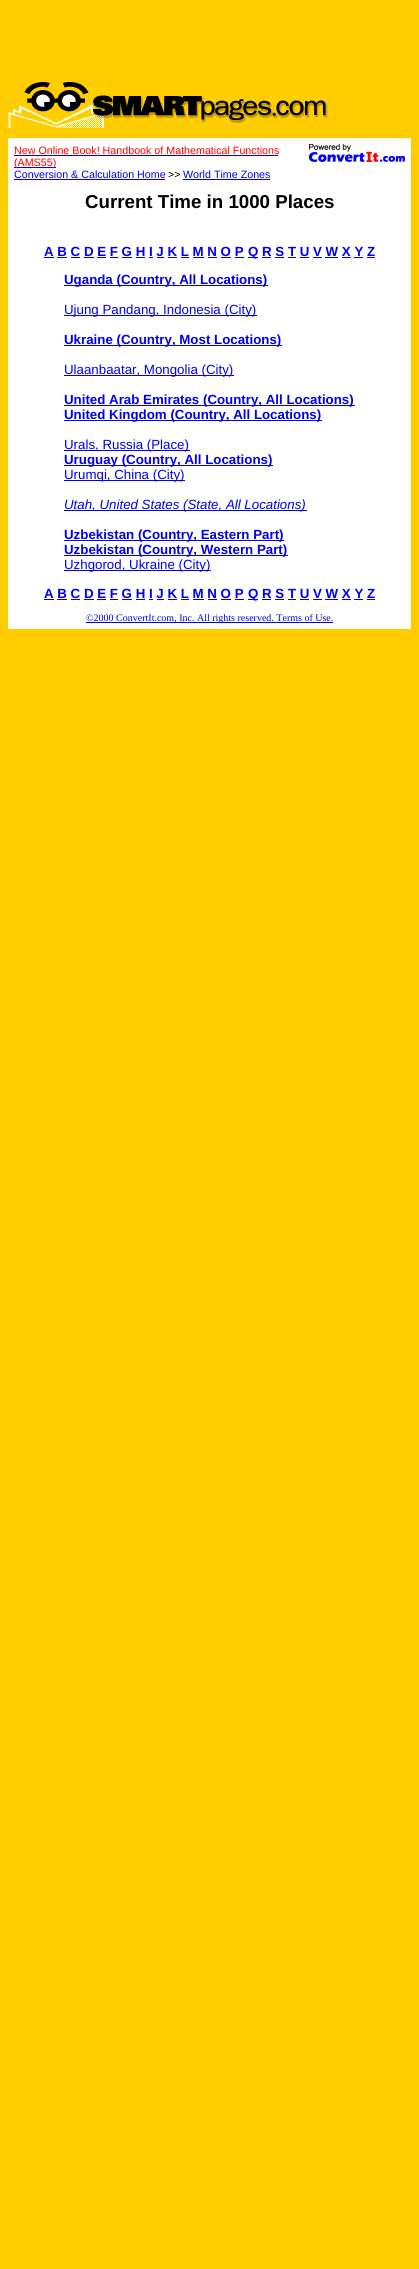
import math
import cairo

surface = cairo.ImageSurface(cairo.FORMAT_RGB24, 419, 2269)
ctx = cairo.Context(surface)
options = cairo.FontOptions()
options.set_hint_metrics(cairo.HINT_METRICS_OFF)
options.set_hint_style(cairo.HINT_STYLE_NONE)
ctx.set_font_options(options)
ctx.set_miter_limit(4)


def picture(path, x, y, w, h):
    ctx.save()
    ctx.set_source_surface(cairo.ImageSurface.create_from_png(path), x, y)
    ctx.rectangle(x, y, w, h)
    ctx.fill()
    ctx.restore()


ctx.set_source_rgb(1, 0.8, 0)
ctx.paint()
picture("img1.png", 8, 82, 320, 46)
ctx.set_source_rgb(1, 1, 1)
ctx.rectangle(8, 138, 403, 491)
ctx.fill()
ctx.select_font_face("Liberation Sans")
ctx.set_font_size(10.7)
ctx.set_source_rgb(1, 0, 0)
ctx.move_to(14, 154)
ctx.show_text("New Online Book! Handbook of Mathematical Functions")
ctx.set_source_rgb(0, 0, 0.933)
ctx.rectangle(14, 155, 264, 1)
ctx.fill()
picture("img2.png", 309, 144, 96, 18)
ctx.rectangle(14, 167, 42, 1)
ctx.fill()
ctx.set_source_rgb(1, 0, 0)
ctx.move_to(14, 166)
ctx.show_text("(AMS55)")
ctx.set_source_rgb(0, 0, 0.933)
ctx.move_to(14, 178)
ctx.show_text("Conversion & Calculation Home")
ctx.rectangle(14, 179, 151, 1)
ctx.fill()
ctx.set_source_rgb(0, 0, 0)
ctx.move_to(168, 178)
ctx.show_text(">>")
ctx.set_source_rgb(0, 0, 0.933)
ctx.move_to(183, 178)
ctx.show_text("World Time Zones")
ctx.rectangle(183, 179, 87, 1)
ctx.fill()
ctx.select_font_face("Liberation Sans", cairo.FONT_SLANT_NORMAL, cairo.FONT_WEIGHT_BOLD)
ctx.set_font_size(18.7)
ctx.set_source_rgb(0, 0, 0)
ctx.move_to(85, 208)
ctx.show_text("Current Time in 1000 Places")
ctx.set_font_size(13.3)
ctx.set_source_rgb(0, 0, 0.933)
ctx.move_to(44, 256)
ctx.show_text("A B C D E F G H I J K L M N O P")
ctx.rectangle(44, 257, 10, 1)
ctx.fill()
ctx.rectangle(248, 257, 10, 1)
ctx.fill()
ctx.move_to(248, 256)
ctx.show_text("Q R S T U V W X Y Z")
ctx.rectangle(57, 257, 10, 1)
ctx.fill()
ctx.rectangle(71, 257, 9, 1)
ctx.fill()
ctx.rectangle(84, 257, 10, 1)
ctx.fill()
ctx.rectangle(97, 257, 9, 1)
ctx.fill()
ctx.rectangle(110, 257, 8, 1)
ctx.fill()
ctx.rectangle(122, 257, 10, 1)
ctx.fill()
ctx.rectangle(136, 257, 9, 1)
ctx.fill()
ctx.rectangle(149, 257, 4, 1)
ctx.fill()
ctx.rectangle(157, 257, 7, 1)
ctx.fill()
ctx.rectangle(168, 257, 9, 1)
ctx.fill()
ctx.rectangle(181, 257, 8, 1)
ctx.fill()
ctx.rectangle(193, 257, 11, 1)
ctx.fill()
ctx.rectangle(208, 257, 9, 1)
ctx.fill()
ctx.rectangle(221, 257, 10, 1)
ctx.fill()
ctx.rectangle(235, 257, 9, 1)
ctx.fill()
ctx.rectangle(262, 257, 9, 1)
ctx.fill()
ctx.rectangle(275, 257, 9, 1)
ctx.fill()
ctx.rectangle(288, 257, 8, 1)
ctx.fill()
ctx.rectangle(300, 257, 9, 1)
ctx.fill()
ctx.rectangle(313, 257, 9, 1)
ctx.fill()
ctx.rectangle(325, 257, 13, 1)
ctx.fill()
ctx.rectangle(342, 257, 9, 1)
ctx.fill()
ctx.rectangle(354, 257, 9, 1)
ctx.fill()
ctx.rectangle(367, 257, 8, 1)
ctx.fill()
ctx.rectangle(64, 285, 204, 1)
ctx.fill()
ctx.move_to(64, 284)
ctx.show_text("Uganda (Country, All Locations)")
ctx.rectangle(64, 315, 193, 1)
ctx.fill()
ctx.select_font_face("Liberation Sans")
ctx.move_to(64, 314)
ctx.show_text("Ujung Pandang, Indonesia (City)")
ctx.rectangle(64, 345, 218, 1)
ctx.fill()
ctx.select_font_face("Liberation Sans", cairo.FONT_SLANT_NORMAL, cairo.FONT_WEIGHT_BOLD)
ctx.move_to(64, 344)
ctx.show_text("Ukraine (Country, Most Locations)")
ctx.rectangle(64, 375, 170, 1)
ctx.fill()
ctx.select_font_face("Liberation Sans")
ctx.move_to(64, 374)
ctx.show_text("Ulaanbaatar, Mongolia (City)")
ctx.rectangle(64, 405, 291, 1)
ctx.fill()
ctx.select_font_face("Liberation Sans", cairo.FONT_SLANT_NORMAL, cairo.FONT_WEIGHT_BOLD)
ctx.move_to(64, 404)
ctx.show_text("United Arab Emirates (Country, All Locations)")
ctx.rectangle(64, 420, 258, 1)
ctx.fill()
ctx.move_to(64, 419)
ctx.show_text("United Kingdom (Country, All Locations)")
ctx.rectangle(64, 450, 126, 1)
ctx.fill()
ctx.select_font_face("Liberation Sans")
ctx.move_to(64, 449)
ctx.show_text("Urals, Russia (Place)")
ctx.rectangle(64, 465, 209, 1)
ctx.fill()
ctx.select_font_face("Liberation Sans", cairo.FONT_SLANT_NORMAL, cairo.FONT_WEIGHT_BOLD)
ctx.move_to(64, 464)
ctx.show_text("Uruguay (Country, All Locations)")
ctx.rectangle(64, 480, 121, 1)
ctx.fill()
ctx.select_font_face("Liberation Sans")
ctx.move_to(64, 479)
ctx.show_text("Urumqi, China (City)")
ctx.rectangle(64, 510, 243, 1)
ctx.fill()
ctx.select_font_face("Liberation Sans", cairo.FONT_SLANT_ITALIC)
ctx.move_to(64, 509)
ctx.show_text("Utah, United States (State, All Locations)")
ctx.rectangle(64, 540, 220, 1)
ctx.fill()
ctx.select_font_face("Liberation Sans", cairo.FONT_SLANT_NORMAL, cairo.FONT_WEIGHT_BOLD)
ctx.move_to(64, 539)
ctx.show_text("Uzbekistan (Country, Eastern Part)")
ctx.rectangle(64, 555, 224, 1)
ctx.fill()
ctx.move_to(64, 554)
ctx.show_text("Uzbekistan (Country, Western Part)")
ctx.rectangle(64, 570, 147, 1)
ctx.fill()
ctx.select_font_face("Liberation Sans")
ctx.move_to(64, 569)
ctx.show_text("Uzhgorod, Ukraine (City)")
ctx.select_font_face("Liberation Sans", cairo.FONT_SLANT_NORMAL, cairo.FONT_WEIGHT_BOLD)
ctx.move_to(44, 598)
ctx.show_text("A B C D E F G H I J K L M N O P")
ctx.rectangle(44, 599, 10, 1)
ctx.fill()
ctx.rectangle(248, 599, 10, 1)
ctx.fill()
ctx.move_to(248, 598)
ctx.show_text("Q R S T U V W X Y Z")
ctx.rectangle(57, 599, 10, 1)
ctx.fill()
ctx.rectangle(71, 599, 9, 1)
ctx.fill()
ctx.rectangle(84, 599, 10, 1)
ctx.fill()
ctx.rectangle(97, 599, 9, 1)
ctx.fill()
ctx.rectangle(110, 599, 8, 1)
ctx.fill()
ctx.rectangle(122, 599, 10, 1)
ctx.fill()
ctx.rectangle(136, 599, 9, 1)
ctx.fill()
ctx.rectangle(149, 599, 4, 1)
ctx.fill()
ctx.rectangle(157, 599, 7, 1)
ctx.fill()
ctx.rectangle(168, 599, 9, 1)
ctx.fill()
ctx.rectangle(181, 599, 8, 1)
ctx.fill()
ctx.rectangle(193, 599, 11, 1)
ctx.fill()
ctx.rectangle(208, 599, 9, 1)
ctx.fill()
ctx.rectangle(221, 599, 10, 1)
ctx.fill()
ctx.rectangle(235, 599, 9, 1)
ctx.fill()
ctx.rectangle(262, 599, 9, 1)
ctx.fill()
ctx.rectangle(275, 599, 9, 1)
ctx.fill()
ctx.rectangle(288, 599, 8, 1)
ctx.fill()
ctx.rectangle(300, 599, 9, 1)
ctx.fill()
ctx.rectangle(313, 599, 9, 1)
ctx.fill()
ctx.rectangle(325, 599, 13, 1)
ctx.fill()
ctx.rectangle(342, 599, 9, 1)
ctx.fill()
ctx.rectangle(354, 599, 9, 1)
ctx.fill()
ctx.rectangle(367, 599, 8, 1)
ctx.fill()
ctx.rectangle(86, 622, 247, 1)
ctx.fill()
ctx.select_font_face("Liberation Serif")
ctx.set_font_size(10)
ctx.move_to(86, 621)
ctx.show_text("©2000 ConvertIt.com, Inc. All rights reserved. Terms of Use.")
surface.write_to_png("page.png")
